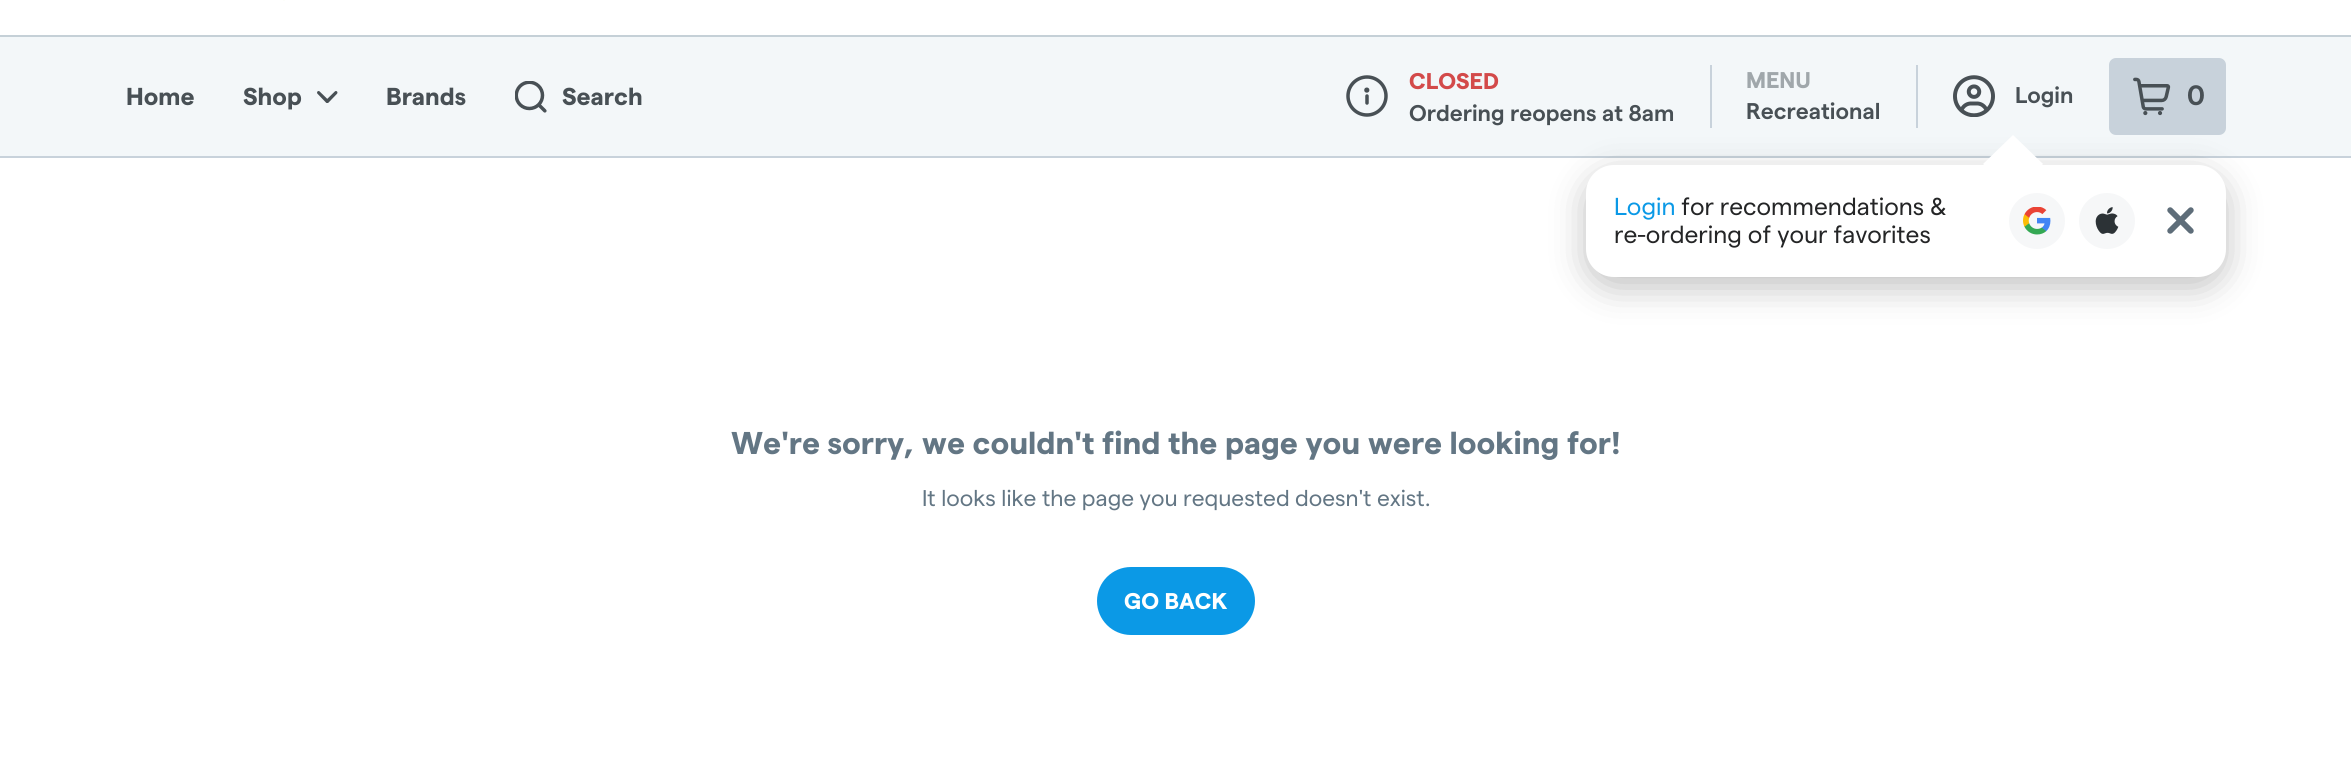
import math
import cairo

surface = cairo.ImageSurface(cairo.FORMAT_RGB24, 2351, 782)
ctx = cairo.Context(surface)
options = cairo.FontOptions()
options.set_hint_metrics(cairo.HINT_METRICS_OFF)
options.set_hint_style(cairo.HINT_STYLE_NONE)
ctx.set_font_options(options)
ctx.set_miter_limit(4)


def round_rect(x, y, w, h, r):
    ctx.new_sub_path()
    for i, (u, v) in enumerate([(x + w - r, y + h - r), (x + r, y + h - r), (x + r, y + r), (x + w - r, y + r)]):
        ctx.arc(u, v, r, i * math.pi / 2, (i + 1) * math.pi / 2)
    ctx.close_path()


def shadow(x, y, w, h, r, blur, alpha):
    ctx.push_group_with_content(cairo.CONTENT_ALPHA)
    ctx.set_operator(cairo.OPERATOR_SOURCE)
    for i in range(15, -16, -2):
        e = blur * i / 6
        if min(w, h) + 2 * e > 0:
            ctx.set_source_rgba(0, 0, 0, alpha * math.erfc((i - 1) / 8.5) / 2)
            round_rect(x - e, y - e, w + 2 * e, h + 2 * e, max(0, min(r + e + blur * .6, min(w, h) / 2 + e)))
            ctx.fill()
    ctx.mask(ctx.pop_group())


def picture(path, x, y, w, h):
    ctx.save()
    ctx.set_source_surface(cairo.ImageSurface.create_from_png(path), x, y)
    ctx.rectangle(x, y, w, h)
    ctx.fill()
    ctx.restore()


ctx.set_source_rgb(1, 1, 1)
ctx.paint()
ctx.set_source_rgb(0.773, 0.816, 0.843)
ctx.rectangle(0, 35, 2351, 2)
ctx.fill()
ctx.set_source_rgb(0.992, 0.996, 0.98)
ctx.rectangle(283, 0, 2, 1)
ctx.fill()
ctx.set_source_rgb(0.953, 0.965, 0.973)
ctx.rectangle(0, 37, 2351, 119)
ctx.fill()
ctx.set_source_rgb(0.784, 0.824, 0.859)
ctx.rectangle(0, 156, 2351, 2)
ctx.fill()
ctx.select_font_face("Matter", cairo.FONT_SLANT_NORMAL, cairo.FONT_WEIGHT_BOLD)
ctx.set_font_size(24.5)
ctx.set_source_rgb(0.282, 0.314, 0.333)
ctx.move_to(126, 105)
ctx.show_text("Home")
ctx.move_to(243, 105)
ctx.show_text("Shop")
picture("img1.png", 317, 91, 21, 12)
ctx.move_to(386, 105)
ctx.show_text("Brands")
picture("img2.png", 515, 81, 32, 32)
ctx.move_to(562, 105)
ctx.show_text("Search")
ctx.new_path()
ctx.arc(1367, 96, 19, 0, 2 * math.pi)
ctx.set_line_width(3.5)
ctx.stroke()
ctx.new_path()
ctx.move_to(1367, 96)
ctx.line_to(1367, 103)
ctx.set_line_cap(cairo.LINE_CAP_ROUND)
ctx.stroke()
ctx.arc(1366.8, 90.1, 2.6, 0, 2 * math.pi)
ctx.fill()
ctx.set_font_size(22.75)
ctx.set_source_rgb(0.827, 0.29, 0.29)
ctx.move_to(1409, 89)
ctx.show_text("CLOSED")
ctx.select_font_face("Matter SemiBold")
ctx.set_source_rgb(0.282, 0.314, 0.333)
ctx.move_to(1409, 121)
ctx.show_text("Ordering reopens at 8am")
ctx.set_source_rgb(0.784, 0.824, 0.859)
ctx.rectangle(1710, 65, 2, 63)
ctx.fill()
ctx.select_font_face("Matter", cairo.FONT_SLANT_NORMAL, cairo.FONT_WEIGHT_BOLD)
ctx.set_source_rgb(0.627, 0.655, 0.671)
ctx.move_to(1746, 88)
ctx.show_text("MENU")
ctx.select_font_face("Matter SemiBold")
ctx.set_source_rgb(0.282, 0.314, 0.333)
ctx.move_to(1746, 119)
ctx.show_text("Recreational")
ctx.set_source_rgb(0.784, 0.824, 0.859)
ctx.rectangle(1916, 65, 2, 63)
ctx.fill()
picture("img3.png", 1953, 75, 42, 42)
ctx.set_source_rgb(0.282, 0.314, 0.333)
ctx.move_to(2015, 103)
ctx.show_text("Login")
ctx.set_source_rgb(0.784, 0.824, 0.859)
round_rect(2109, 58, 117, 77, 7)
ctx.fill()
picture("img4.png", 2133, 77, 38, 39)
ctx.set_font_size(28)
ctx.set_source_rgb(0.282, 0.314, 0.333)
ctx.move_to(2187, 105)
ctx.show_text("0")
ctx.set_source_rgb(0, 0, 0)
shadow(1586, 175, 640, 112, 28, 17.5, 0.25)
ctx.set_source_rgb(1, 1, 1)
round_rect(1586, 165, 640, 112, 28)
ctx.fill()
ctx.set_source_rgb(0.961, 0.965, 0.969)
ctx.arc(2037, 221, 28, 0, 2 * math.pi)
ctx.fill()
ctx.set_source_rgb(1, 1, 1)
ctx.new_path()
ctx.move_to(2013, 135)
ctx.line_to(2043, 164)
ctx.line_to(2013, 194)
ctx.line_to(1983, 164)
ctx.close_path()
ctx.fill()
ctx.select_font_face("Matter")
ctx.set_font_size(24.5)
ctx.set_source_rgb(0.043, 0.6, 0.902)
ctx.move_to(1614, 215)
ctx.show_text("Login")
ctx.set_source_rgb(0.141, 0.145, 0.149)
ctx.move_to(1681, 215)
ctx.show_text("for recommendations &")
ctx.move_to(1614, 243)
ctx.show_text("re-ordering of your favorites")
picture("img5.png", 2023, 207, 28, 28)
ctx.set_source_rgb(0.961, 0.965, 0.969)
ctx.arc(2107, 221, 28, 0, 2 * math.pi)
ctx.fill()
picture("img6.png", 2095, 207, 24, 27)
picture("img7.png", 2167, 207, 27, 27)
ctx.select_font_face("Matter", cairo.FONT_SLANT_NORMAL, cairo.FONT_WEIGHT_BOLD)
ctx.set_font_size(31.5)
ctx.set_source_rgb(0.388, 0.463, 0.518)
ctx.move_to(731, 454)
ctx.show_text("We're sorry, we couldn't find the page you were looking for!")
ctx.select_font_face("Matter")
ctx.set_font_size(22.75)
ctx.move_to(922, 506)
ctx.show_text("It looks like the page you requested doesn't exist.")
ctx.set_source_rgb(0.043, 0.6, 0.902)
round_rect(1097, 567, 158, 68, 34)
ctx.fill()
ctx.select_font_face("Matter", cairo.FONT_SLANT_NORMAL, cairo.FONT_WEIGHT_BOLD)
ctx.set_source_rgb(1, 1, 1)
ctx.move_to(1124, 609)
ctx.show_text("GO BACK")
surface.write_to_png("page.png")
